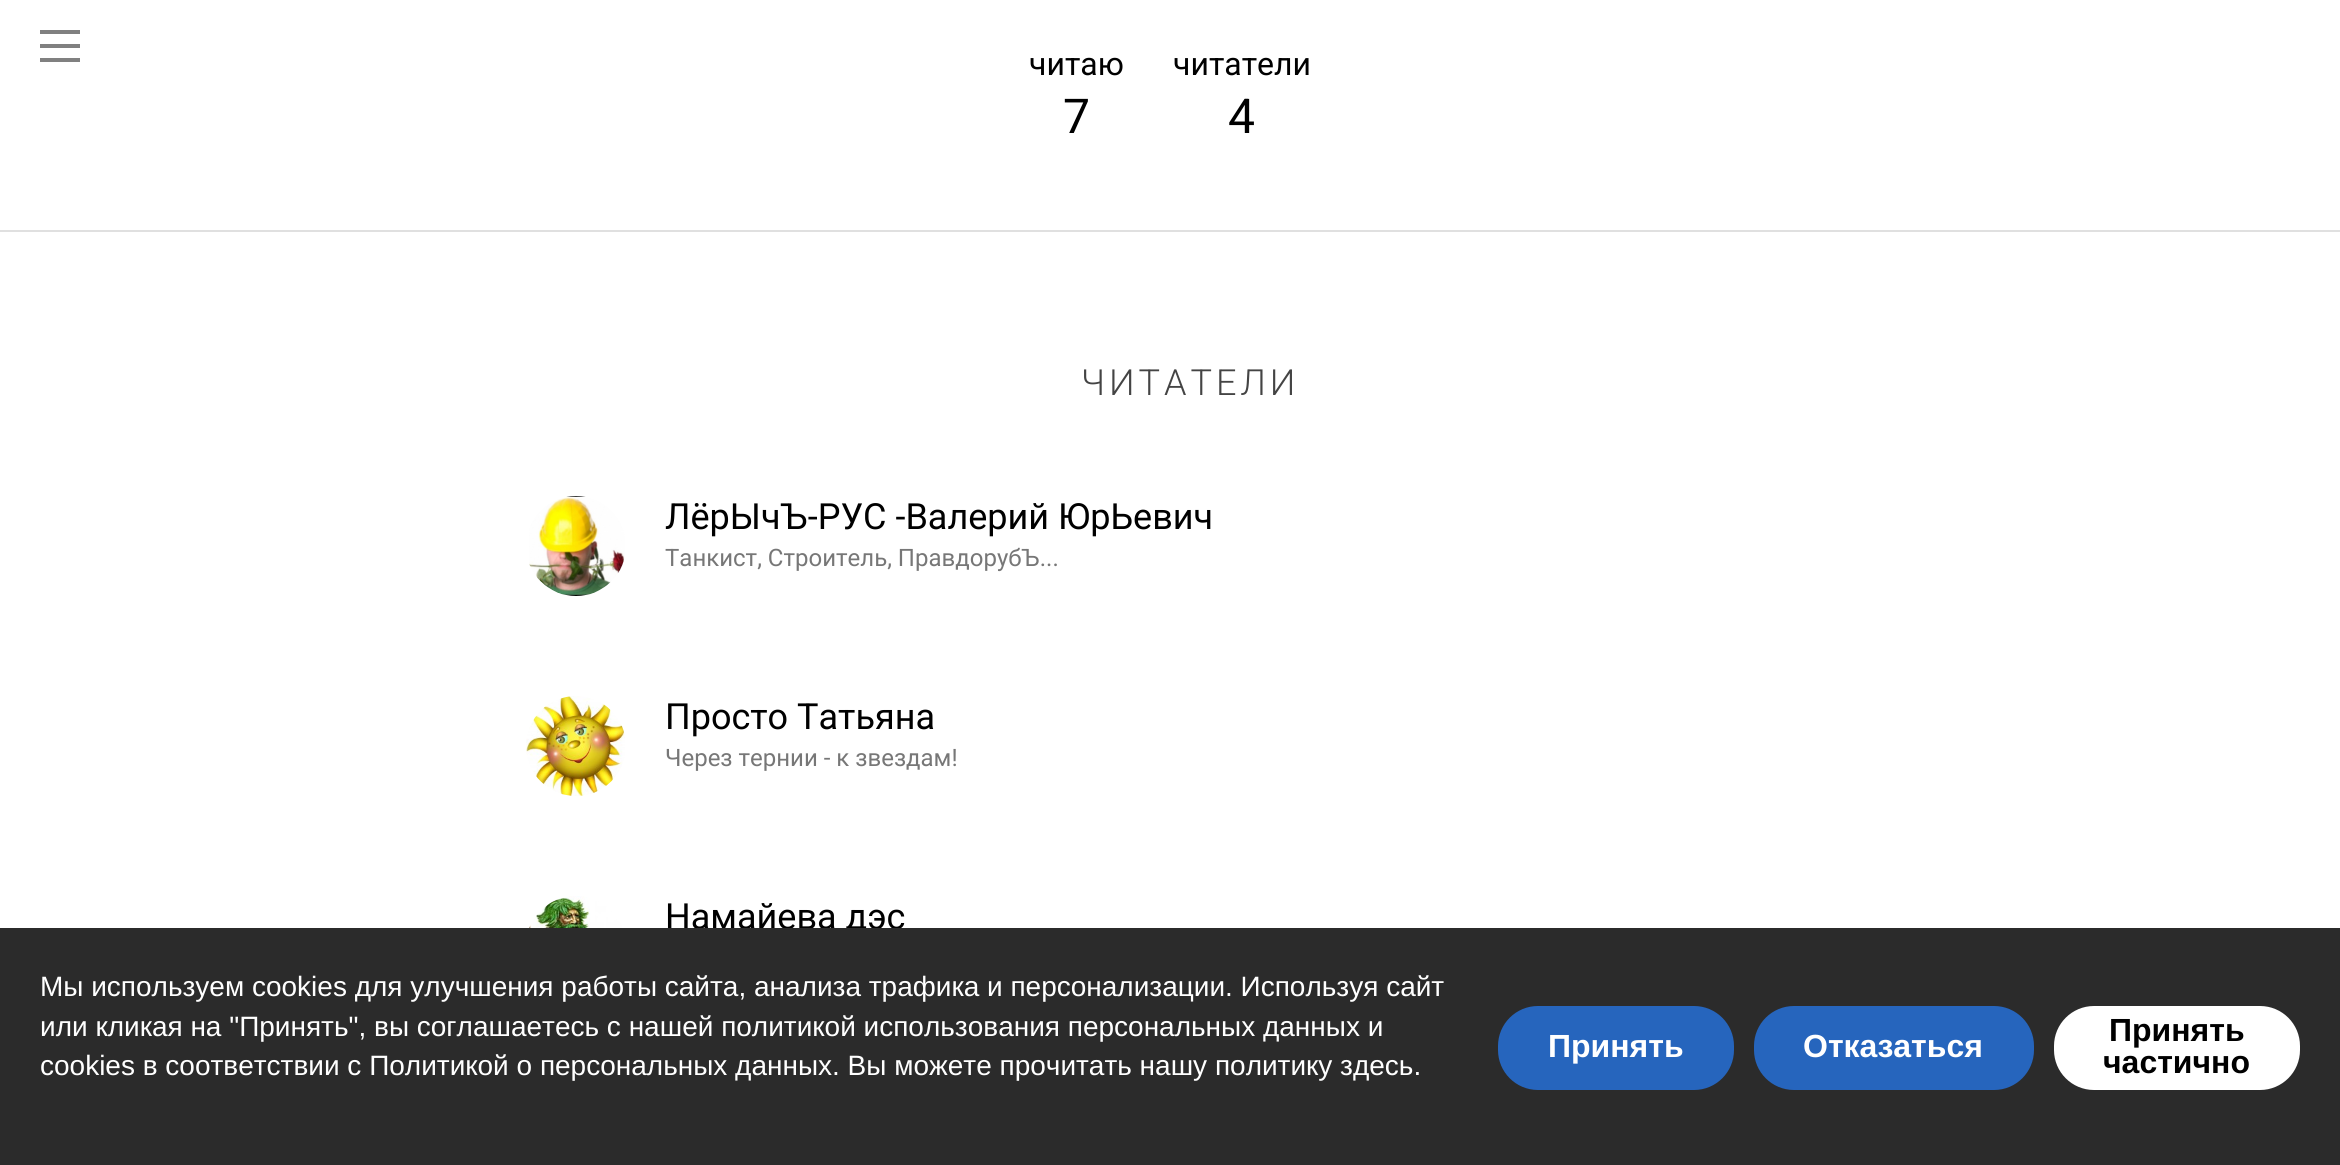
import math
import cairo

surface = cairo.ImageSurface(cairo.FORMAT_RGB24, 2340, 1165)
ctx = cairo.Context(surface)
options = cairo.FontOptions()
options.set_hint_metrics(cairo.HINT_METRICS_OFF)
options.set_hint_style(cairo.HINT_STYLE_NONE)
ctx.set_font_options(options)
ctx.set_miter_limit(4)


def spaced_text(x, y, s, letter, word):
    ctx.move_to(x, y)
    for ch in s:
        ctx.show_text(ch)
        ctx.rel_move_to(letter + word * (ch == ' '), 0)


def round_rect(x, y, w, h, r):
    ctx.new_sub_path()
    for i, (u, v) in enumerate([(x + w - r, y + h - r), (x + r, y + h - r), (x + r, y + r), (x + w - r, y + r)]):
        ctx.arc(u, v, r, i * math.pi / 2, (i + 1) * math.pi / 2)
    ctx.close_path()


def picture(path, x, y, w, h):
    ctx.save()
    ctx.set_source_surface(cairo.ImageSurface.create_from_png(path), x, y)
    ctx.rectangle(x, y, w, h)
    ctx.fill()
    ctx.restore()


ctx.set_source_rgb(1, 1, 1)
ctx.paint()
ctx.set_source_rgb(0.502, 0.502, 0.502)
ctx.rectangle(40, 30, 40, 4)
ctx.fill()
ctx.rectangle(40, 44, 40, 4)
ctx.fill()
ctx.rectangle(40, 58, 40, 4)
ctx.fill()
ctx.select_font_face("Roboto")
ctx.set_font_size(32)
ctx.set_source_rgb(0, 0, 0)
ctx.move_to(1029, 75)
ctx.show_text("читаю")
ctx.set_font_size(48)
ctx.move_to(1063, 133)
ctx.show_text("7")
ctx.set_font_size(32)
ctx.move_to(1173, 75)
ctx.show_text("читатели")
ctx.set_font_size(48)
ctx.move_to(1228, 133)
ctx.show_text("4")
ctx.set_source_rgb(0.878, 0.878, 0.878)
ctx.rectangle(0, 230, 2340, 2)
ctx.fill()
ctx.select_font_face("Roboto Light")
ctx.set_font_size(36)
ctx.set_source_rgb(0.267, 0.267, 0.267)
spaced_text(1081, 395, "ЧИТАТЕЛИ", 4, 0)
picture("img1.png", 529, 496, 96, 100)
ctx.select_font_face("Roboto")
ctx.set_source_rgb(0, 0, 0)
ctx.move_to(665, 529)
ctx.show_text("ЛёрЫчЪ-РУС -Валерий ЮрЬевич")
ctx.set_font_size(24)
ctx.set_source_rgb(0.467, 0.467, 0.467)
ctx.move_to(665, 566)
ctx.show_text("Танкист, Строитель, ПравдорубЪ...")
picture("img2.png", 526, 696, 99, 100)
ctx.set_font_size(36)
ctx.set_source_rgb(0, 0, 0)
ctx.move_to(665, 729)
ctx.show_text("Просто Татьяна")
ctx.set_font_size(24)
ctx.set_source_rgb(0.467, 0.467, 0.467)
ctx.move_to(665, 766)
ctx.show_text("Через тернии - к звездам!")
picture("img3.png", 529, 896, 93, 32)
ctx.set_font_size(36)
ctx.set_source_rgb(0, 0, 0)
ctx.move_to(665, 929)
ctx.show_text("Намайева дэс")
ctx.set_source_rgb(0.169, 0.169, 0.169)
ctx.rectangle(0, 928, 2340, 237)
ctx.fill()
ctx.select_font_face("Liberation Sans")
ctx.set_font_size(28)
ctx.set_source_rgb(1, 1, 1)
ctx.move_to(40, 996)
ctx.show_text("Мы используем cookies для улучшения работы сайта, анализа трафика и персонализации. Используя сайт")
ctx.move_to(40, 1036)
ctx.show_text("или кликая на \"Принять\", вы соглашаетесь с нашей политикой использования персональных данных и")
ctx.move_to(40, 1075)
ctx.show_text("cookies в соответствии с Политикой о персональных данных. Вы можете прочитать нашу политику здесь.")
ctx.set_source_rgb(0.149, 0.396, 0.741)
round_rect(1498, 1006, 236, 84, 40)
ctx.fill()
ctx.select_font_face("Liberation Sans", cairo.FONT_SLANT_NORMAL, cairo.FONT_WEIGHT_BOLD)
ctx.set_font_size(32)
ctx.set_source_rgb(1, 1, 1)
ctx.move_to(1548, 1057)
ctx.show_text("Принять")
ctx.set_source_rgb(0.149, 0.396, 0.741)
round_rect(1754, 1006, 280, 84, 40)
ctx.fill()
ctx.set_source_rgb(1, 1, 1)
ctx.move_to(1803, 1057)
ctx.show_text("Отказаться")
round_rect(2054, 1006, 246, 84, 40)
ctx.fill()
ctx.set_source_rgb(0, 0, 0)
ctx.move_to(2109, 1041)
ctx.show_text("Принять")
ctx.move_to(2103, 1073)
ctx.show_text("частично")
surface.write_to_png("page.png")
